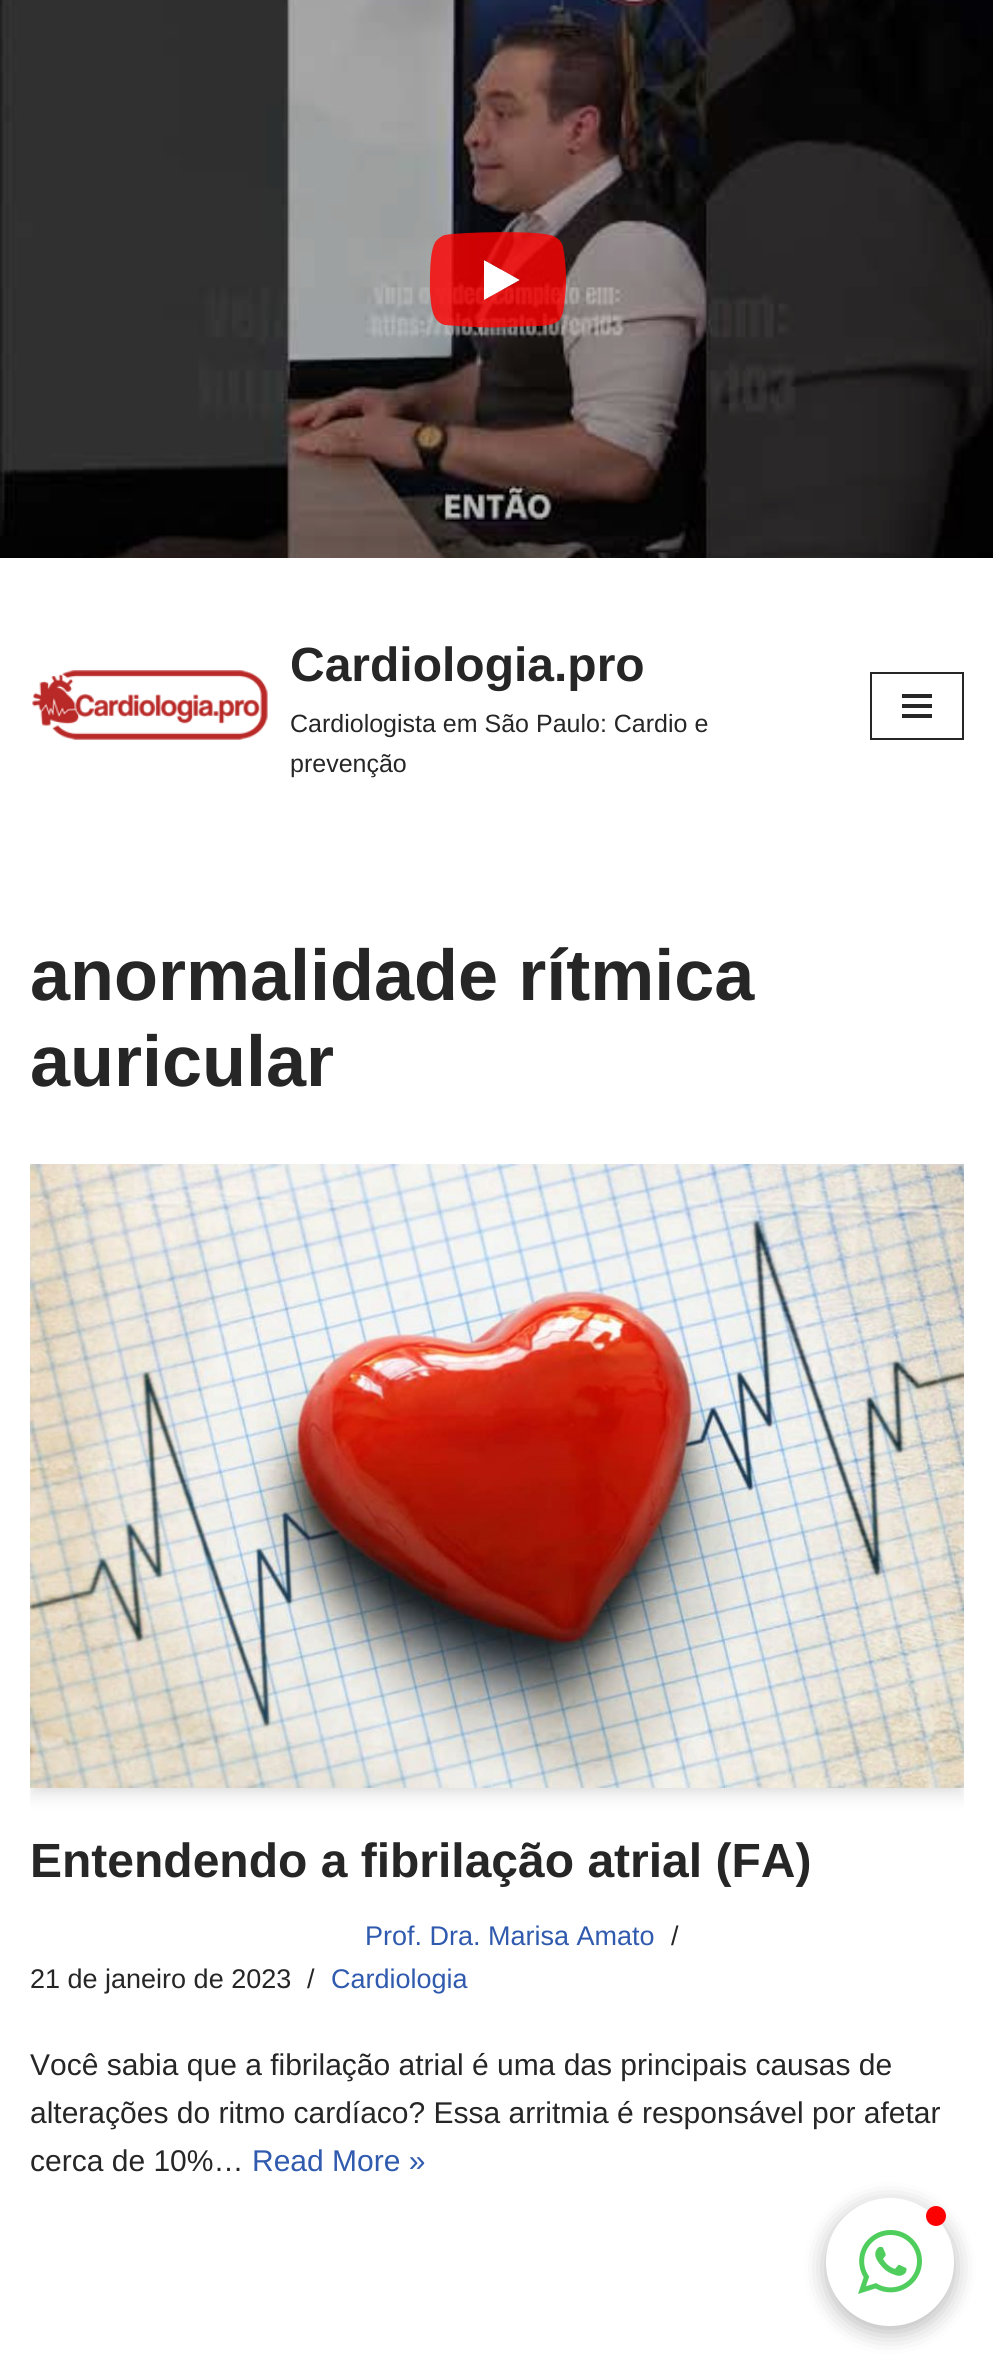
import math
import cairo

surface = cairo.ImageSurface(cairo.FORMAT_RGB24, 993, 2366)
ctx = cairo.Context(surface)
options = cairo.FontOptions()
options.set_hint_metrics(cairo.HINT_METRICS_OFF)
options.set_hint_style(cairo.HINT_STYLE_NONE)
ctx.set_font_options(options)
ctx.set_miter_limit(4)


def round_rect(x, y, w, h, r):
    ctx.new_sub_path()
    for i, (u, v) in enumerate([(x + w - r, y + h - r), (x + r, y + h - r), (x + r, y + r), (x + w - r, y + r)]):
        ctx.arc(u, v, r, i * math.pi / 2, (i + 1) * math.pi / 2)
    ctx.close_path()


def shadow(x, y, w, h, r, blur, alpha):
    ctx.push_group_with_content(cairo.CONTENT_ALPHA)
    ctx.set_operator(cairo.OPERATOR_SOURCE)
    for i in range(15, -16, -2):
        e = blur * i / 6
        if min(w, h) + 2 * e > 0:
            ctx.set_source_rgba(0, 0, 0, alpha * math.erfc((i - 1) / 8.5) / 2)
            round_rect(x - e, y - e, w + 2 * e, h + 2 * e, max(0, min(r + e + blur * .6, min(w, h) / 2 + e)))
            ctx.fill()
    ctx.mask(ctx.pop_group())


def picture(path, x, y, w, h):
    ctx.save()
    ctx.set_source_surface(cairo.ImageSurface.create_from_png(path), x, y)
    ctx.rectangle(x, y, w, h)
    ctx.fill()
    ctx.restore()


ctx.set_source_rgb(1, 1, 1)
ctx.paint()
picture("img1.png", 0, 0, 993, 558)
ctx.set_source_rgb(1, 1, 1)
ctx.new_path()
ctx.move_to(484, 300)
ctx.line_to(484, 260)
ctx.line_to(520, 280)
ctx.close_path()
ctx.fill()
ctx.set_source_rgba(1, 0, 0, 0.8)
ctx.new_path()
ctx.move_to(563, 247)
ctx.curve_to(562, 242, 558, 238, 553, 236)
ctx.curve_to(540, 230, 460, 232, 445, 235)
ctx.curve_to(441, 236, 438, 239, 436, 241)
ctx.curve_to(429, 250, 430, 281, 430, 292)
ctx.curve_to(431, 303, 431, 322, 445, 325)
ctx.line_to(458, 326)
ctx.curve_to(473, 327, 489, 328, 505, 327)
ctx.line_to(538, 326)
ctx.curve_to(562, 325, 563, 319, 565, 297)
ctx.curve_to(567, 280, 566, 263, 563, 247)
ctx.move_to(484, 300)
ctx.line_to(484, 260)
ctx.line_to(520, 280)
ctx.close_path()
ctx.fill()
picture("img2.png", 32, 670, 236, 70)
ctx.select_font_face("Liberation Sans", cairo.FONT_SLANT_NORMAL, cairo.FONT_WEIGHT_BOLD)
ctx.set_font_size(48)
ctx.set_source_rgb(0.153, 0.149, 0.149)
ctx.move_to(290, 681)
ctx.show_text("Cardiologia.pro")
ctx.select_font_face("Liberation Sans")
ctx.set_font_size(25)
ctx.move_to(290, 732)
ctx.show_text("Cardiologista em São Paulo: Cardio e")
ctx.move_to(290, 772)
ctx.show_text("prevenção")
ctx.rectangle(871, 673, 92, 66)
ctx.stroke()
ctx.rectangle(902, 694, 30, 4)
ctx.fill()
ctx.rectangle(902, 704, 30, 4)
ctx.fill()
ctx.rectangle(902, 714, 30, 4)
ctx.fill()
ctx.select_font_face("Liberation Sans", cairo.FONT_SLANT_NORMAL, cairo.FONT_WEIGHT_BOLD)
ctx.set_font_size(72)
ctx.move_to(30, 1000)
ctx.show_text("anormalidade rítmica")
ctx.move_to(30, 1086)
ctx.show_text("auricular")
ctx.save()
ctx.rectangle(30, 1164, 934, 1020)
ctx.clip()
ctx.set_source_rgb(0, 0, 0)
shadow(30, 1172, 934, 624, 0, 8, 0.1)
ctx.restore()
ctx.set_source_rgb(0, 0, 0)
shadow(40, 1180, 914, 604, 0, 6, 0.1)
picture("img3.png", 30, 1164, 934, 624)
ctx.set_font_size(48)
ctx.set_source_rgb(0.153, 0.149, 0.149)
ctx.move_to(30, 1877)
ctx.show_text("Entendendo a fibrilação atrial (FA)")
ctx.select_font_face("Liberation Sans")
ctx.set_font_size(27)
ctx.set_source_rgb(0.184, 0.353, 0.682)
ctx.move_to(365, 1945)
ctx.show_text("Prof. Dra. Marisa Amato")
ctx.set_source_rgb(0.153, 0.149, 0.149)
ctx.move_to(671, 1945)
ctx.show_text("/")
ctx.move_to(30, 1988)
ctx.show_text("21 de janeiro de 2023")
ctx.move_to(307, 1988)
ctx.show_text("/")
ctx.set_source_rgb(0.184, 0.353, 0.682)
ctx.move_to(331, 1988)
ctx.show_text("Cardiologia")
ctx.set_font_size(30)
ctx.set_source_rgb(0.153, 0.149, 0.149)
ctx.move_to(30, 2075)
ctx.show_text("Você sabia que a fibrilação atrial é uma das principais causas de")
ctx.move_to(30, 2123)
ctx.show_text("alterações do ritmo cardíaco? Essa arritmia é responsável por afetar")
ctx.move_to(30, 2171)
ctx.show_text("cerca de 10%…")
ctx.set_source_rgb(0.184, 0.353, 0.682)
ctx.move_to(252, 2171)
ctx.show_text("Read More »")
ctx.set_source_rgb(0, 0, 0)
shadow(826, 2204, 128, 128, 64, 12, 0.15)
shadow(826, 2204, 128, 128, 64, 12, 0.15)
ctx.set_source_rgb(1, 1, 1)
ctx.arc(890, 2262, 64, 0, 2 * math.pi)
ctx.fill()
ctx.set_source_rgb(1, 0, 0)
ctx.arc(936, 2216, 10, 0, 2 * math.pi)
ctx.fill()
picture("img4.png", 858, 2230, 64, 64)
surface.write_to_png("page.png")
